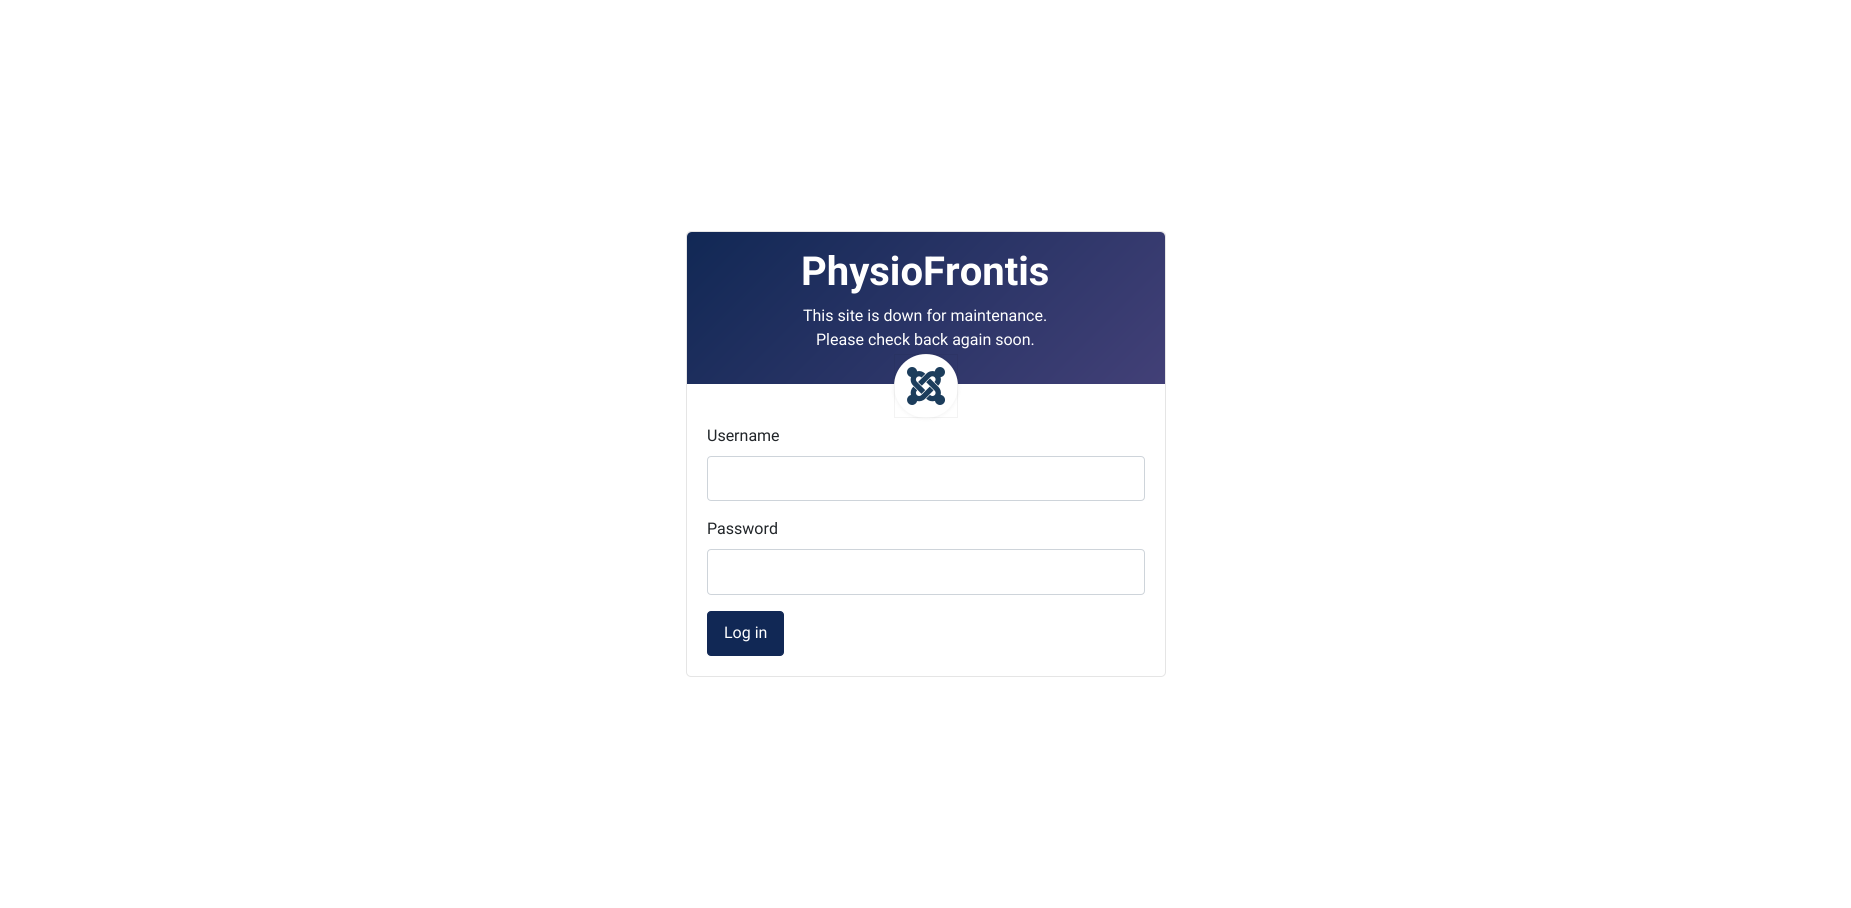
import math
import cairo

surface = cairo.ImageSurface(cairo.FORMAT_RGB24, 1851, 908)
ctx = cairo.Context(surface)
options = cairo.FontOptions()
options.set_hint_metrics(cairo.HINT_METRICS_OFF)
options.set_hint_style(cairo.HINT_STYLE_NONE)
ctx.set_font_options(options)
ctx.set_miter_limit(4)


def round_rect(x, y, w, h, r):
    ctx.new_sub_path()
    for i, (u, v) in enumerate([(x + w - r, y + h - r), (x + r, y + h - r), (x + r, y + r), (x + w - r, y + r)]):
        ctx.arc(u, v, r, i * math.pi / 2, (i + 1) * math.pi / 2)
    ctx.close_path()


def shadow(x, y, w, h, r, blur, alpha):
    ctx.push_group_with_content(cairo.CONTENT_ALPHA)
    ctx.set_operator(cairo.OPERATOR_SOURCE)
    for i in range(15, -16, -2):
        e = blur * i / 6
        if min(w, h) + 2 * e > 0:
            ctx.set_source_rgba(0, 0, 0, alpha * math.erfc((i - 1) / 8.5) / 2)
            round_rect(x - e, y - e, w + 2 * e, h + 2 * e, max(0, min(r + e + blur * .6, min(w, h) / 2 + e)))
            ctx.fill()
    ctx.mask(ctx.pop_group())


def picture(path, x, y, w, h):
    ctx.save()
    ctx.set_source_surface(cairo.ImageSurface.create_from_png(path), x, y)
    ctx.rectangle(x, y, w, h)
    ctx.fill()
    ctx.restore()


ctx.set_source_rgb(1, 1, 1)
ctx.paint()
round_rect(686.5, 231.5, 479, 445, 4.5)
ctx.set_source_rgb(0.898, 0.898, 0.898)
ctx.set_line_width(1)
ctx.stroke()
gradient = cairo.LinearGradient(769, 151, 1084, 466)
gradient.add_color_stop_rgba(0, 0.067, 0.157, 0.333, 1)
gradient.add_color_stop_rgba(1, 0.259, 0.251, 0.467, 1)
ctx.set_source(gradient)
ctx.new_path()
ctx.move_to(692, 232)
ctx.line_to(1160, 232)
ctx.curve_to(1163, 232, 1165, 234, 1165, 237)
ctx.line_to(1165, 384)
ctx.line_to(687, 384)
ctx.line_to(687, 237)
ctx.curve_to(687, 234, 689, 232, 692, 232)
ctx.close_path()
ctx.fill()
ctx.select_font_face("Roboto", cairo.FONT_SLANT_NORMAL, cairo.FONT_WEIGHT_BOLD)
ctx.set_font_size(40)
ctx.set_source_rgb(1, 1, 1)
ctx.move_to(801, 285)
ctx.show_text("PhysioFrontis")
ctx.select_font_face("Roboto")
ctx.set_font_size(16)
ctx.move_to(803, 321)
ctx.show_text("This site is down for maintenance.")
ctx.move_to(816, 345)
ctx.show_text("Please check back again soon.")
ctx.set_source_rgb(0, 0, 0)
shadow(894, 354, 64, 64, 32, 2.5, 0.07)
ctx.set_source_rgb(1, 1, 1)
ctx.arc(926, 386, 32, 0, 2 * math.pi)
ctx.fill()
ctx.rectangle(894.5, 354.5, 63, 63)
ctx.set_source_rgba(0, 0, 0, 0.05)
ctx.stroke()
picture("img1.png", 907, 367, 38, 38)
ctx.set_source_rgb(0.133, 0.149, 0.165)
ctx.move_to(707, 441)
ctx.show_text("Username")
round_rect(707.5, 456.5, 437, 44, 3.5)
ctx.set_source_rgb(0.808, 0.831, 0.855)
ctx.stroke()
ctx.set_source_rgb(0.133, 0.149, 0.165)
ctx.move_to(707, 534)
ctx.show_text("Password")
round_rect(707.5, 549.5, 437, 45, 3.5)
ctx.set_source_rgb(0.808, 0.831, 0.855)
ctx.stroke()
ctx.set_source_rgb(0.067, 0.157, 0.333)
round_rect(707.5, 611.5, 76, 44, 3.5)
ctx.fill_preserve()
ctx.stroke()
ctx.set_source_rgb(1, 1, 1)
ctx.move_to(724, 638)
ctx.show_text("Log in")
surface.write_to_png("page.png")
